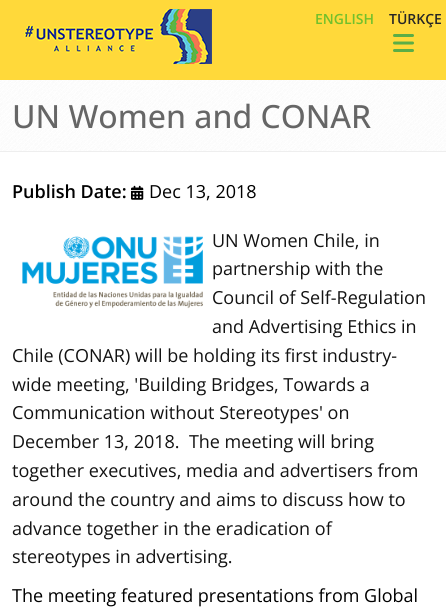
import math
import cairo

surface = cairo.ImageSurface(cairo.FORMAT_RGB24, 446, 612)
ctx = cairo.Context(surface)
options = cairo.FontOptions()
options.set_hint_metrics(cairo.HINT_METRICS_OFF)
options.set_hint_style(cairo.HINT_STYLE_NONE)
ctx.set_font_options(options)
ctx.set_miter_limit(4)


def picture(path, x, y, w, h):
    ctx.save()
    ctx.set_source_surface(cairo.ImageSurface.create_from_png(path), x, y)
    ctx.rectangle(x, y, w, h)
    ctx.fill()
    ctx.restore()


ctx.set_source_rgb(1, 1, 1)
ctx.paint()
ctx.set_source_rgb(1, 0.851, 0.227)
ctx.rectangle(0, 0, 446, 80)
ctx.fill()
picture("img1.png", 24, 9, 188, 55)
ctx.select_font_face("Open Sans SemiBold")
ctx.set_font_size(14)
ctx.set_source_rgb(0.447, 0.753, 0.173)
ctx.move_to(315, 24)
ctx.show_text("ENGLISH")
ctx.set_source_rgb(0.149, 0.149, 0.149)
ctx.move_to(389, 24)
ctx.show_text("TÜRKÇE")
picture("img2.png", 393, 34, 21, 18)
picture("img3.png", 0, 80, 446, 71)
ctx.set_source_rgb(0.933, 0.933, 0.933)
ctx.rectangle(0, 151, 446, 1)
ctx.fill()
ctx.select_font_face("Open Sans Medium")
ctx.set_font_size(32)
ctx.set_source_rgb(0.4, 0.4, 0.4)
ctx.move_to(12, 128)
ctx.show_text("UN Women and CONAR")
ctx.select_font_face("Open Sans SemiBold")
ctx.set_font_size(18)
ctx.set_source_rgb(0, 0, 0)
ctx.move_to(12, 198)
ctx.show_text("Publish Date:")
picture("img4.png", 131, 185, 13, 15)
ctx.select_font_face("Open Sans")
ctx.move_to(149, 198)
ctx.show_text("Dec 13, 2018")
ctx.set_source_rgb(0.075, 0.075, 0.075)
ctx.move_to(212, 247)
ctx.show_text("UN Women Chile, in")
ctx.move_to(212, 275)
ctx.show_text("partnership with the")
ctx.move_to(212, 304)
ctx.show_text("Council of Self-Regulation")
ctx.move_to(212, 333)
ctx.show_text("and Advertising Ethics in")
ctx.move_to(12, 362)
ctx.show_text("Chile (CONAR) will be holding its first industry-")
ctx.move_to(12, 391)
ctx.show_text("wide meeting, 'Building Bridges, Towards a")
ctx.move_to(12, 419)
ctx.show_text("Communication without Stereotypes' on")
ctx.move_to(12, 448)
ctx.show_text("December 13, 2018.  The meeting will bring")
ctx.move_to(12, 477)
ctx.show_text("together executives, media and advertisers from")
ctx.move_to(12, 506)
ctx.show_text("around the country and aims to discuss how to")
ctx.move_to(12, 535)
ctx.show_text("advance together in the eradication of")
ctx.move_to(12, 563)
ctx.show_text("stereotypes in advertising.")
ctx.set_source_rgb(0, 0, 0)
ctx.move_to(12, 602)
ctx.show_text("The meeting featured presentations from Global")
picture("img5.png", 22, 236, 181, 73)
surface.write_to_png("page.png")
